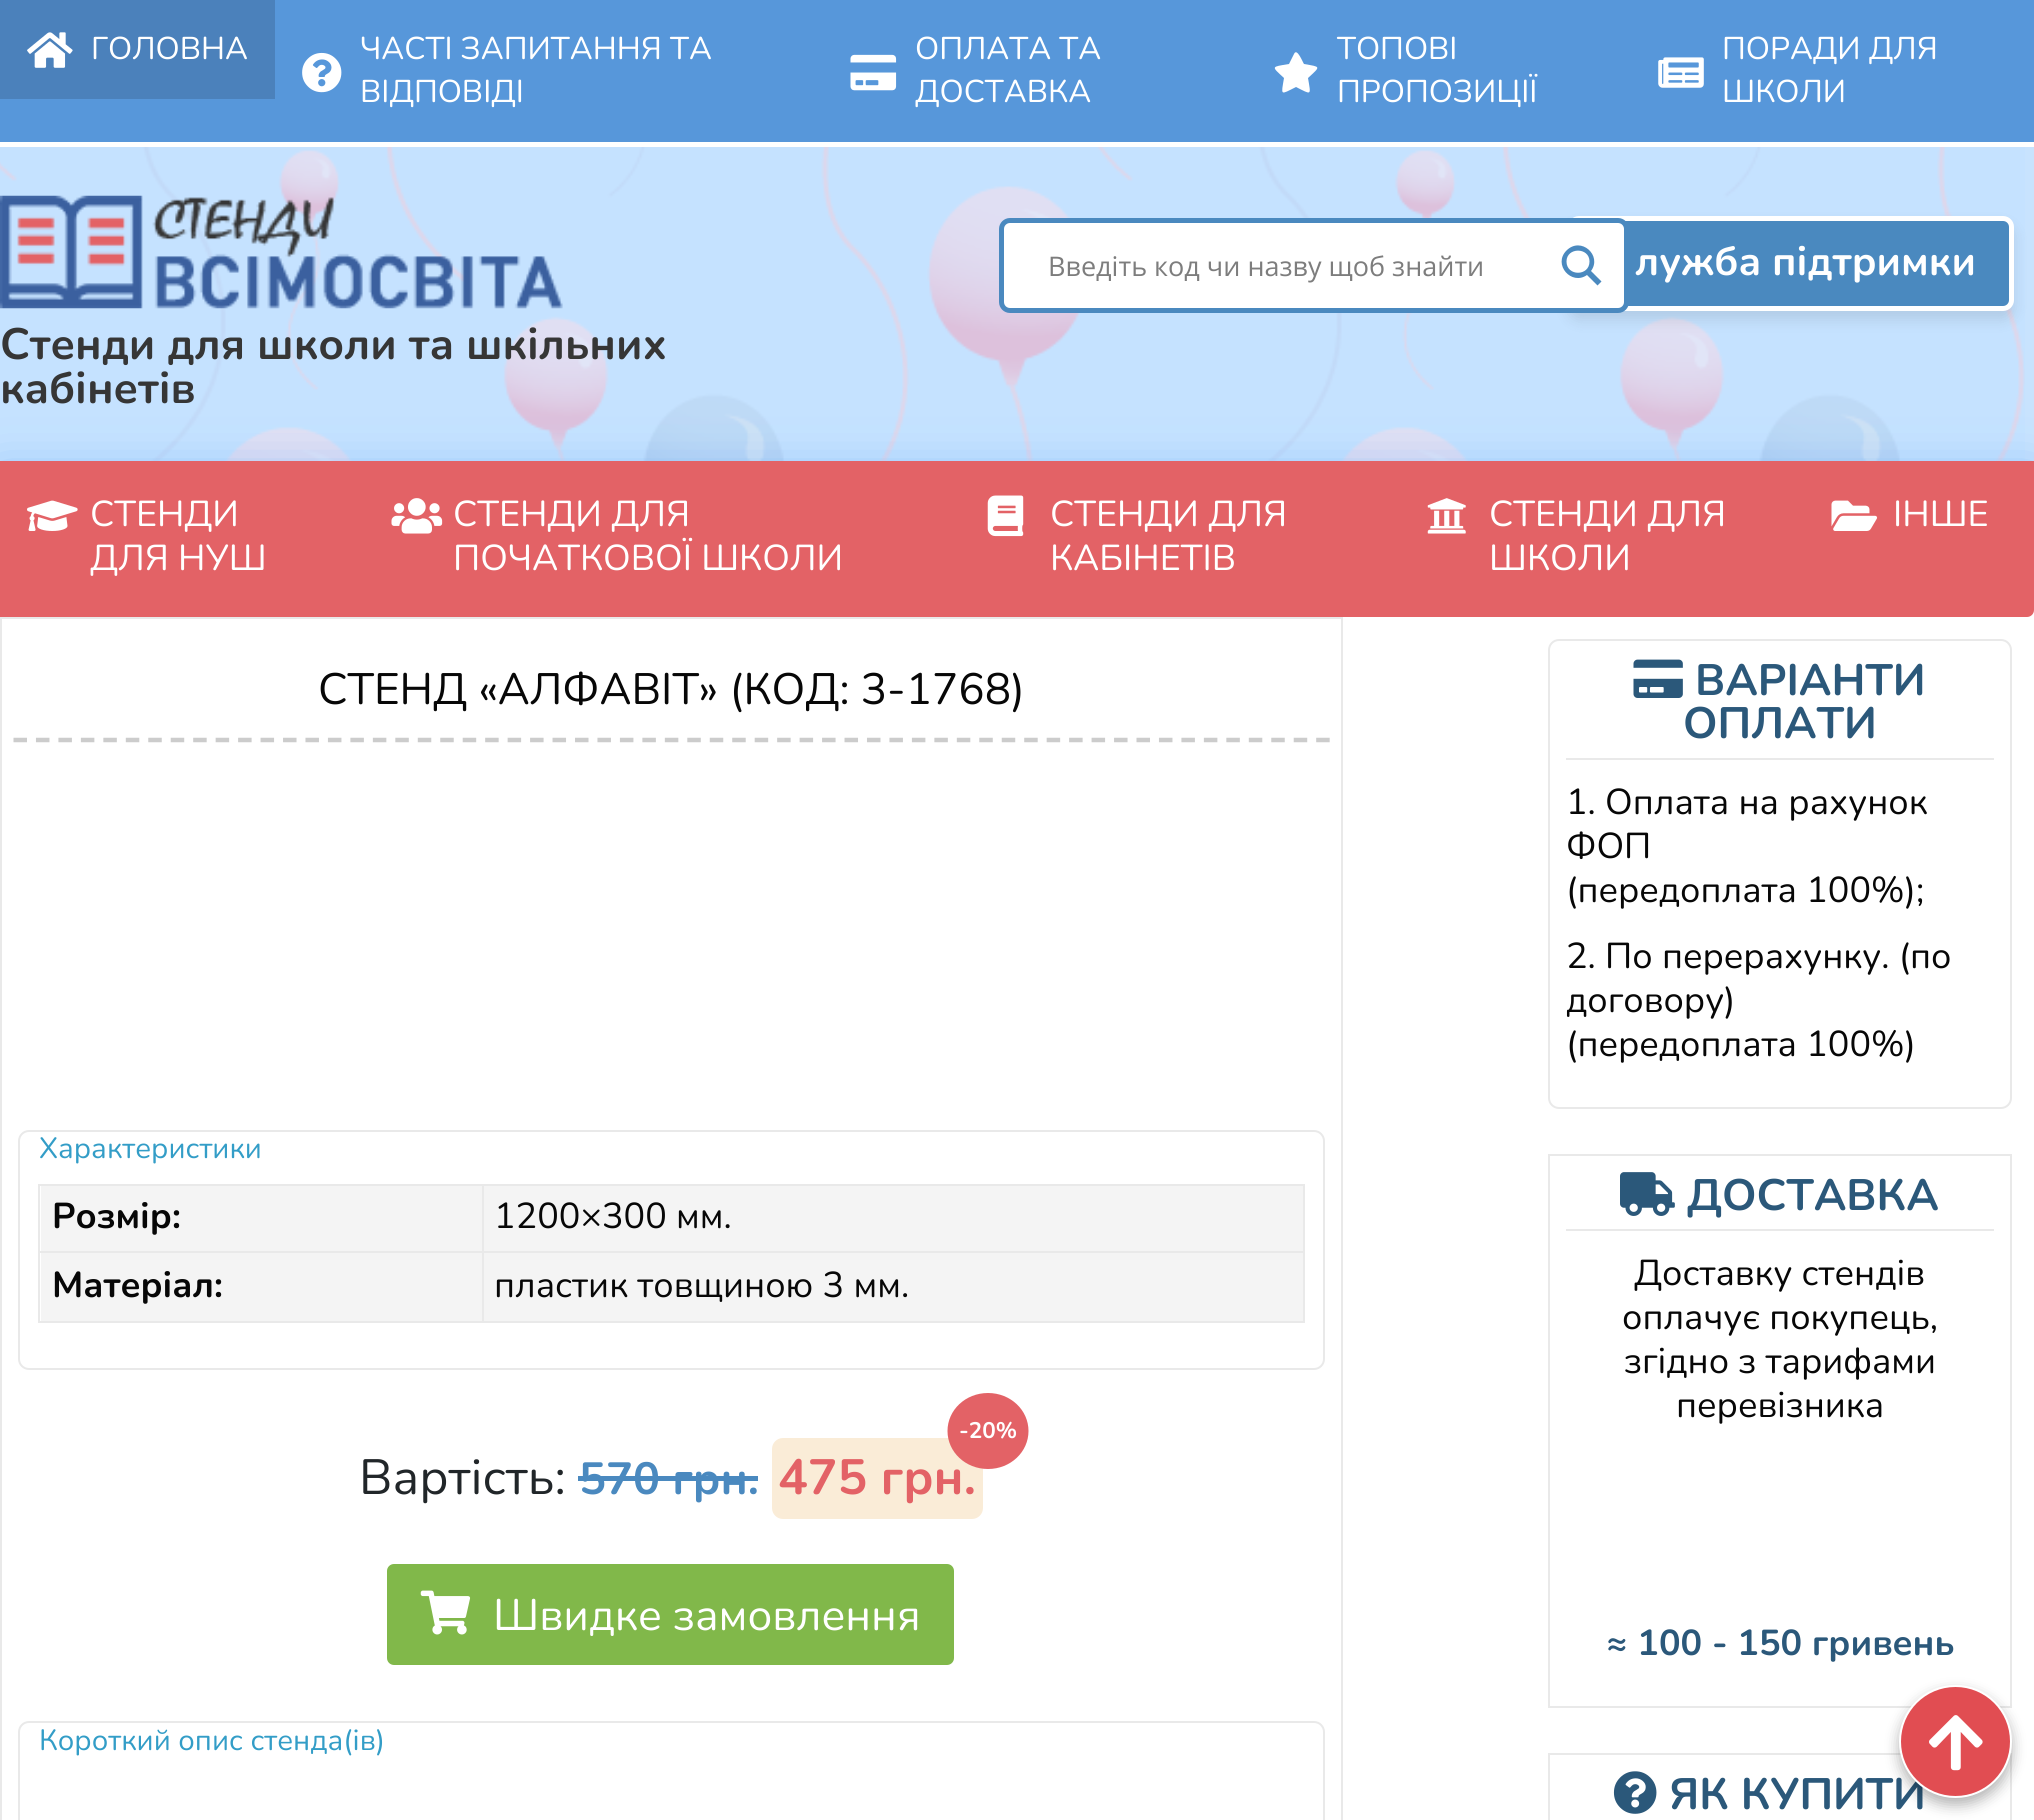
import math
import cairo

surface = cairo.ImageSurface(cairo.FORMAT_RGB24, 2034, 1820)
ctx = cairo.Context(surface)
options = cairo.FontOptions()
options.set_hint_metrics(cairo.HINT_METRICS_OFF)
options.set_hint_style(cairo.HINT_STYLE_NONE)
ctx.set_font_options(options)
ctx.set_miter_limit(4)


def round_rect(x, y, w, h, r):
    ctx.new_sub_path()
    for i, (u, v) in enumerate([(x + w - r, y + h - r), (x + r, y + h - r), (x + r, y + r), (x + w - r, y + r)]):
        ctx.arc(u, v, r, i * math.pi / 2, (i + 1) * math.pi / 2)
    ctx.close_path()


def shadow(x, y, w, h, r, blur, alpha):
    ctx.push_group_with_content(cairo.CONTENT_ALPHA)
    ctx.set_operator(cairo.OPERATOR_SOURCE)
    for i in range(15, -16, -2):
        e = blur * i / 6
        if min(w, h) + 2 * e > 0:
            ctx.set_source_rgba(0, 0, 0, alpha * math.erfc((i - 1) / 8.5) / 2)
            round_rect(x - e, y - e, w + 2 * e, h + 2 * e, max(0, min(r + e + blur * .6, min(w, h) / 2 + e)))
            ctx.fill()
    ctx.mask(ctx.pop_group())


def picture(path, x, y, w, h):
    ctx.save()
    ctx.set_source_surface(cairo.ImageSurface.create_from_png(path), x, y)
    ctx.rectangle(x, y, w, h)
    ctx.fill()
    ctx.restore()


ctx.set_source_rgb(0.784, 0.89, 0.996)
ctx.paint()
picture("img1.png", 0, 147, 2025, 314)
ctx.set_source_rgb(0.341, 0.592, 0.855)
ctx.rectangle(0, 0, 2034, 142)
ctx.fill()
ctx.set_source_rgb(1, 1, 1)
ctx.rectangle(0, 142, 2034, 5)
ctx.fill()
ctx.set_source_rgb(0.294, 0.506, 0.733)
ctx.rectangle(0, 0, 275, 99)
ctx.fill()
picture("img2.png", 27, 32, 46, 36)
ctx.select_font_face("Nunito")
ctx.set_font_size(31.5)
ctx.set_source_rgb(1, 1, 1)
ctx.move_to(91, 59)
ctx.show_text("ГОЛОВНА")
ctx.move_to(360, 59)
ctx.show_text("ЧАСТІ ЗАПИТАННЯ ТА")
picture("img3.png", 302, 52, 40, 41)
ctx.move_to(360, 102)
ctx.show_text("ВІДПОВІДІ")
ctx.move_to(915, 59)
ctx.show_text("ОПЛАТА ТА")
picture("img4.png", 850, 54, 47, 37)
ctx.move_to(915, 102)
ctx.show_text("ДОСТАВКА")
ctx.move_to(1337, 59)
ctx.show_text("ТОПОВІ")
ctx.new_path()
ctx.move_to(1294, 54)
ctx.curve_to(1297, 47, 1303, 63, 1304, 64)
ctx.curve_to(1321, 67, 1321, 66, 1308, 78)
ctx.curve_to(1311, 96, 1312, 95, 1296, 87)
ctx.curve_to(1280, 95, 1281, 96, 1284, 78)
ctx.curve_to(1271, 66, 1271, 67, 1289, 64)
ctx.close_path()
ctx.fill()
ctx.move_to(1337, 102)
ctx.show_text("ПРОПОЗИЦІЇ")
ctx.move_to(1722, 59)
ctx.show_text("ПОРАДИ ДЛЯ")
picture("img5.png", 1658, 57, 46, 31)
ctx.move_to(1722, 102)
ctx.show_text("ШКОЛИ")
ctx.set_source_rgb(0, 0, 0)
shadow(1568, 225, 446, 95, 11, 7, 0.1)
ctx.set_source_rgb(0.29, 0.537, 0.749)
round_rect(1570.5, 218.5, 441, 90, 8.5)
ctx.fill_preserve()
ctx.set_source_rgb(1, 1, 1)
ctx.set_line_width(5)
ctx.stroke()
round_rect(1001.5, 220.5, 625, 90, 8.5)
ctx.fill_preserve()
ctx.set_source_rgb(0.29, 0.537, 0.749)
ctx.stroke()
ctx.select_font_face("Open Sans")
ctx.set_font_size(27)
ctx.set_source_rgb(0.49, 0.49, 0.49)
ctx.move_to(1048, 276)
ctx.show_text("Введіть код чи назву щоб знайти")
ctx.set_source_rgb(0.29, 0.537, 0.749)
ctx.new_path()
ctx.move_to(1601.5, 281.5)
ctx.line_to(1591, 271)
ctx.curve_to(1602.5, 255.5, 1581, 236, 1566.5, 250.5)
ctx.curve_to(1552.5, 264.5, 1571.5, 286, 1587, 275)
ctx.line_to(1597.5, 285.5)
ctx.close_path()
ctx.move_to(1566.5, 261.5)
ctx.curve_to(1566.5, 247, 1589.5, 247, 1589.5, 261.5)
ctx.curve_to(1589.5, 276.5, 1566.5, 276.5, 1566.5, 261.5)
ctx.close_path()
ctx.fill()
ctx.select_font_face("Nunito", cairo.FONT_SLANT_NORMAL, cairo.FONT_WEIGHT_BOLD)
ctx.set_font_size(40.5)
ctx.set_source_rgb(1, 1, 1)
ctx.move_to(1635, 275)
ctx.show_text("лужба підтримки")
picture("img6.png", 0, 195, 563, 114)
ctx.set_font_size(43.9)
ctx.set_source_rgb(0.212, 0.212, 0.212)
ctx.move_to(0, 359)
ctx.show_text("Стенди для школи та шкільних")
ctx.move_to(0, 403)
ctx.show_text("кабінетів")
ctx.set_source_rgb(0.463, 0.71, 0.965)
shadow(0, 479, 2034, 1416, 0, 25, 1)
ctx.set_source_rgb(1, 1, 1)
ctx.rectangle(2, 610, 2032, 1210)
ctx.fill()
ctx.set_source_rgb(0.89, 0.384, 0.4)
round_rect(0, 461, 2034, 156, 7)
ctx.fill()
ctx.rectangle(0, 461, 7, 156)
ctx.fill()
picture("img7.png", 27, 500, 51, 31)
ctx.select_font_face("Nunito")
ctx.set_font_size(36)
ctx.set_source_rgb(1, 1, 1)
ctx.move_to(90, 526)
ctx.show_text("СТЕНДИ")
ctx.move_to(90, 570)
ctx.show_text("ДЛЯ НУШ")
picture("img8.png", 391, 498, 52, 36)
ctx.move_to(453, 526)
ctx.show_text("СТЕНДИ ДЛЯ")
ctx.move_to(453, 570)
ctx.show_text("ПОЧАТКОВОЇ ШКОЛИ")
picture("img9.png", 987, 495, 37, 42)
ctx.move_to(1050, 526)
ctx.show_text("СТЕНДИ ДЛЯ")
ctx.move_to(1050, 570)
ctx.show_text("КАБІНЕТІВ")
picture("img10.png", 1427, 498, 39, 36)
ctx.move_to(1489, 526)
ctx.show_text("СТЕНДИ ДЛЯ")
ctx.move_to(1489, 570)
ctx.show_text("ШКОЛИ")
ctx.set_source_rgb(0.89, 0.384, 0.4)
ctx.rectangle(2027, 461, 7, 7)
ctx.fill()
picture("img11.png", 1831, 500, 47, 31)
ctx.set_source_rgb(1, 1, 1)
ctx.move_to(1893, 526)
ctx.show_text("ІНШЕ")
ctx.rectangle(1, 618, 1341, 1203)
ctx.set_source_rgb(0.914, 0.914, 0.914)
ctx.set_line_width(2)
ctx.stroke()
ctx.new_path()
ctx.move_to(13.5, 740)
ctx.line_to(1330, 740)
ctx.set_source_rgb(0.8, 0.8, 0.8)
ctx.set_line_width(4.5)
ctx.set_dash([13.5, 8.96])
ctx.stroke()
ctx.set_font_size(43.9)
ctx.set_source_rgb(0.031, 0.031, 0.031)
ctx.move_to(318, 704)
ctx.show_text("СТЕНД «АЛФАВІТ» (КОД: 3-1768)")
round_rect(19, 1131, 1305, 238, 10)
ctx.set_source_rgb(0.914, 0.914, 0.914)
ctx.set_line_width(2)
ctx.set_dash([])
ctx.stroke()
ctx.set_font_size(29.25)
ctx.set_source_rgb(0.2, 0.616, 0.78)
ctx.move_to(39, 1158)
ctx.show_text("Характеристики")
ctx.set_source_rgb(0.914, 0.914, 0.914)
ctx.rectangle(38, 1184, 1267, 2)
ctx.fill()
ctx.rectangle(1303, 1184, 2, 139)
ctx.fill()
ctx.rectangle(38, 1321, 1267, 2)
ctx.fill()
ctx.rectangle(38, 1184, 2, 139)
ctx.fill()
ctx.set_source_rgb(0.957, 0.957, 0.957)
ctx.rectangle(41, 1186, 441, 65)
ctx.fill()
ctx.select_font_face("Nunito", cairo.FONT_SLANT_NORMAL, cairo.FONT_WEIGHT_BOLD)
ctx.set_font_size(36)
ctx.set_source_rgb(0.031, 0.031, 0.031)
ctx.move_to(52, 1228)
ctx.show_text("Розмір:")
ctx.set_source_rgb(0.957, 0.957, 0.957)
ctx.rectangle(484, 1186, 819, 65)
ctx.fill()
ctx.set_source_rgb(0.914, 0.914, 0.914)
ctx.rectangle(482, 1251, 823, 2)
ctx.fill()
ctx.rectangle(482, 1251, 2, 72)
ctx.fill()
ctx.rectangle(38, 1251, 446, 2)
ctx.fill()
ctx.rectangle(482, 1184, 2, 69)
ctx.fill()
ctx.select_font_face("Nunito")
ctx.set_source_rgb(0.031, 0.031, 0.031)
ctx.move_to(494, 1228)
ctx.show_text("1200×300 мм.")
ctx.set_source_rgb(0.957, 0.957, 0.957)
ctx.rectangle(41, 1253, 441, 68)
ctx.fill()
ctx.select_font_face("Nunito", cairo.FONT_SLANT_NORMAL, cairo.FONT_WEIGHT_BOLD)
ctx.set_source_rgb(0.031, 0.031, 0.031)
ctx.move_to(52, 1297)
ctx.show_text("Матеріал:")
ctx.set_source_rgb(0.957, 0.957, 0.957)
ctx.rectangle(484, 1253, 819, 68)
ctx.fill()
ctx.select_font_face("Nunito")
ctx.set_source_rgb(0.031, 0.031, 0.031)
ctx.move_to(494, 1297)
ctx.show_text("пластик товщиною 3 мм.")
ctx.set_font_size(49.5)
ctx.set_source_rgb(0.129, 0.149, 0.161)
ctx.move_to(359, 1494)
ctx.show_text("Вартість:")
ctx.select_font_face("Nunito", cairo.FONT_SLANT_NORMAL, cairo.FONT_WEIGHT_BOLD)
ctx.set_font_size(45)
ctx.set_source_rgb(0.29, 0.537, 0.749)
ctx.move_to(579, 1494)
ctx.show_text("570 грн.")
ctx.rectangle(578, 1476, 180, 5)
ctx.fill()
ctx.set_source_rgb(0.98, 0.922, 0.843)
round_rect(772, 1438, 211, 81, 11)
ctx.fill()
ctx.set_source_rgb(0.89, 0.384, 0.4)
ctx.new_path()
ctx.move_to(988, 1393)
ctx.curve_to(1010.5, 1393, 1028.5, 1410, 1028.5, 1431)
ctx.curve_to(1028.5, 1452, 1010.5, 1469, 988, 1469)
ctx.curve_to(965.5, 1469, 947.5, 1452, 947.5, 1431)
ctx.curve_to(947.5, 1410, 965.5, 1393, 988, 1393)
ctx.close_path()
ctx.fill()
ctx.set_font_size(22.5)
ctx.set_source_rgb(1, 1, 1)
ctx.move_to(959, 1438)
ctx.show_text("-20%")
ctx.set_font_size(49.5)
ctx.set_source_rgb(0.89, 0.384, 0.4)
ctx.move_to(778, 1494)
ctx.show_text("475 грн.")
ctx.set_source_rgb(0.506, 0.722, 0.29)
round_rect(387, 1564, 567, 101, 7)
ctx.fill()
picture("img12.png", 420, 1590, 51, 45)
ctx.select_font_face("Nunito")
ctx.set_font_size(43.9)
ctx.set_source_rgb(1, 1, 1)
ctx.move_to(493, 1630)
ctx.show_text("Швидке замовлення")
round_rect(19, 1722, 1305, 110, 10)
ctx.set_source_rgb(0.914, 0.914, 0.914)
ctx.stroke()
ctx.set_font_size(29.25)
ctx.set_source_rgb(0.2, 0.616, 0.78)
ctx.move_to(39, 1750)
ctx.show_text("Короткий опис стенда(ів)")
round_rect(1549, 640, 462, 468, 10)
ctx.set_source_rgb(0.914, 0.914, 0.914)
ctx.stroke()
ctx.rectangle(1566, 758, 428, 2)
ctx.fill()
picture("img13.png", 1633, 659, 50, 39)
ctx.select_font_face("Nunito", cairo.FONT_SLANT_NORMAL, cairo.FONT_WEIGHT_BOLD)
ctx.set_font_size(43.9)
ctx.set_source_rgb(0.169, 0.345, 0.478)
ctx.move_to(1695, 695)
ctx.show_text("ВАРІАНТИ")
ctx.move_to(1683, 738)
ctx.show_text("ОПЛАТИ")
ctx.select_font_face("Nunito")
ctx.set_font_size(36)
ctx.set_source_rgb(0.031, 0.031, 0.031)
ctx.move_to(1566, 814)
ctx.show_text("1. Оплата на рахунок")
ctx.move_to(1566, 858)
ctx.show_text("ФОП")
ctx.move_to(1566, 902)
ctx.show_text("(передоплата 100%);")
ctx.move_to(1566, 968)
ctx.show_text("2. По перерахунку. (по")
ctx.move_to(1566, 1012)
ctx.show_text("договору)")
ctx.move_to(1566, 1056)
ctx.show_text("(передоплата 100%)")
ctx.rectangle(1549, 1155, 462, 552)
ctx.set_source_rgb(0.914, 0.914, 0.914)
ctx.stroke()
ctx.rectangle(1566, 1229, 428, 2)
ctx.fill()
picture("img14.png", 1620, 1172, 55, 44)
ctx.select_font_face("Nunito", cairo.FONT_SLANT_NORMAL, cairo.FONT_WEIGHT_BOLD)
ctx.set_font_size(43.9)
ctx.set_source_rgb(0.169, 0.345, 0.478)
ctx.move_to(1687, 1210)
ctx.show_text("ДОСТАВКА")
ctx.select_font_face("Nunito")
ctx.set_font_size(36)
ctx.set_source_rgb(0.031, 0.031, 0.031)
ctx.move_to(1634, 1285)
ctx.show_text("Доставку стендів")
ctx.move_to(1622, 1329)
ctx.show_text("оплачує покупець,")
ctx.move_to(1624, 1373)
ctx.show_text("згідно з тарифами")
ctx.move_to(1676, 1417)
ctx.show_text("перевізника")
ctx.select_font_face("Nunito", cairo.FONT_SLANT_NORMAL, cairo.FONT_WEIGHT_BOLD)
ctx.set_source_rgb(0.169, 0.345, 0.478)
ctx.move_to(1606, 1655)
ctx.show_text("≈ 100 - 150 гривень")
ctx.rectangle(1549, 1754, 462, 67)
ctx.set_source_rgb(0.914, 0.914, 0.914)
ctx.stroke()
picture("img15.png", 1613, 1771, 44, 43)
ctx.set_font_size(43.9)
ctx.set_source_rgb(0.169, 0.345, 0.478)
ctx.move_to(1669, 1809)
ctx.show_text("ЯК КУПИТИ")
ctx.set_source_rgb(0, 0, 0)
shadow(1899, 1692, 113, 113, 56.5, 7, 0.3)
ctx.set_source_rgb(0.882, 0.302, 0.322)
ctx.arc(1955.5, 1741.5, 55.5, 0, 2 * math.pi)
ctx.fill_preserve()
ctx.set_source_rgb(1, 1, 1)
ctx.stroke()
picture("img16.png", 1929, 1715, 54, 56)
surface.write_to_png("page.png")
